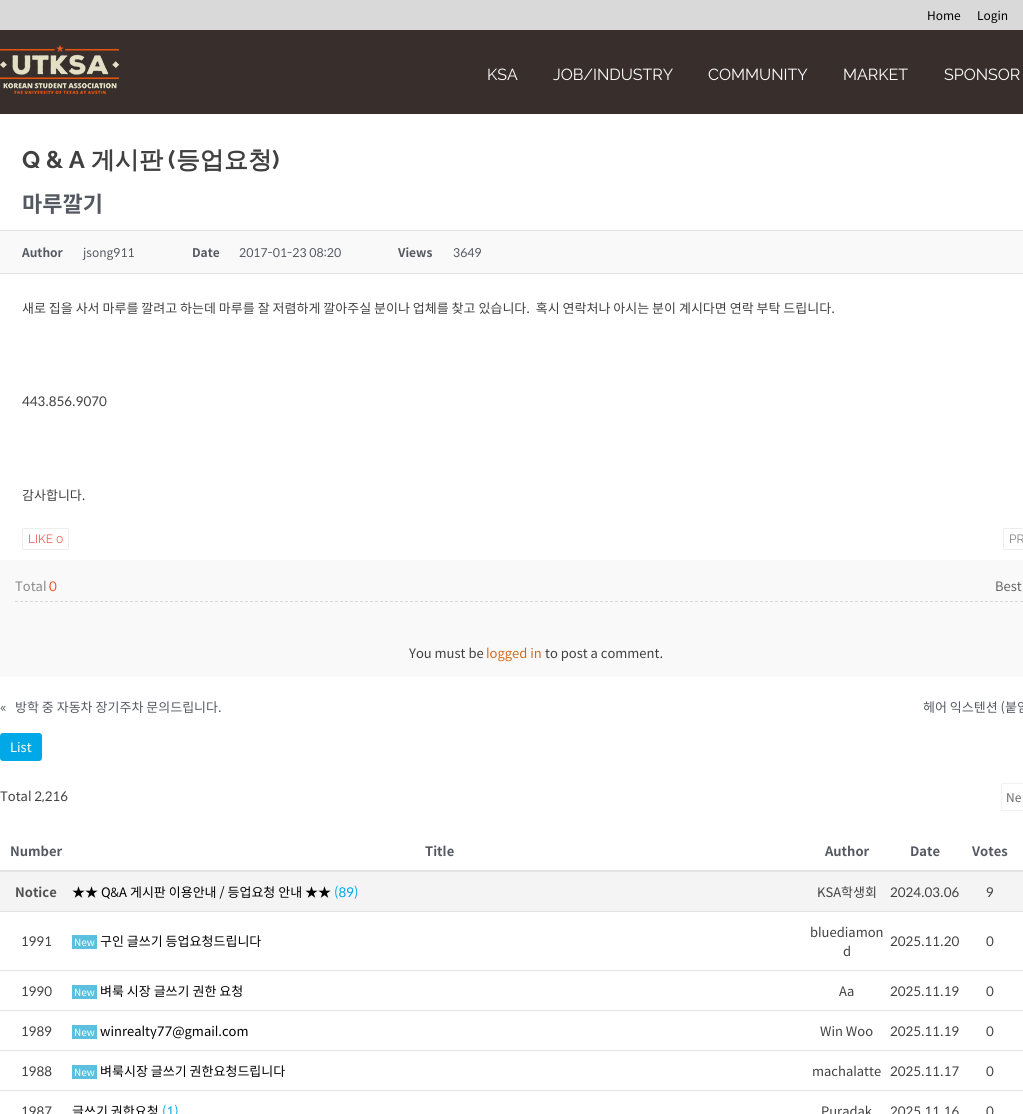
import math
import cairo

surface = cairo.ImageSurface(cairo.FORMAT_RGB24, 1023, 1114)
ctx = cairo.Context(surface)
options = cairo.FontOptions()
options.set_hint_metrics(cairo.HINT_METRICS_OFF)
options.set_hint_style(cairo.HINT_STYLE_NONE)
ctx.set_font_options(options)
ctx.set_miter_limit(4)


def round_rect(x, y, w, h, r):
    ctx.new_sub_path()
    for i, (u, v) in enumerate([(x + w - r, y + h - r), (x + r, y + h - r), (x + r, y + r), (x + w - r, y + r)]):
        ctx.arc(u, v, r, i * math.pi / 2, (i + 1) * math.pi / 2)
    ctx.close_path()


def picture(path, x, y, w, h):
    ctx.save()
    ctx.set_source_surface(cairo.ImageSurface.create_from_png(path), x, y)
    ctx.rectangle(x, y, w, h)
    ctx.fill()
    ctx.restore()


ctx.set_source_rgb(1, 1, 1)
ctx.paint()
ctx.set_source_rgb(0.851, 0.851, 0.851)
ctx.rectangle(0, 0, 1023, 30)
ctx.fill()
ctx.select_font_face("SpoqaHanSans")
ctx.set_font_size(12)
ctx.set_source_rgb(0, 0, 0)
ctx.move_to(927, 20)
ctx.show_text("Home")
ctx.move_to(977, 20)
ctx.show_text("Login")
ctx.set_source_rgb(0.22, 0.184, 0.176)
ctx.rectangle(0, 30, 1023, 84)
ctx.fill()
picture("img1.png", 0, 45, 119, 49)
ctx.select_font_face("Raleway")
ctx.set_font_size(16)
ctx.set_source_rgb(1, 1, 1)
ctx.move_to(487, 80)
ctx.show_text("KSA")
ctx.move_to(553, 80)
ctx.show_text("JOB/INDUSTRY")
ctx.move_to(708, 80)
ctx.show_text("COMMUNITY")
ctx.move_to(843, 80)
ctx.show_text("MARKET")
ctx.move_to(944, 80)
ctx.show_text("SPONSOR")
ctx.select_font_face("Raleway", cairo.FONT_SLANT_NORMAL, cairo.FONT_WEIGHT_BOLD)
ctx.set_font_size(24)
ctx.set_source_rgb(0.251, 0.251, 0.251)
ctx.move_to(22, 168)
ctx.show_text("Q & A")
ctx.select_font_face("WenQuanYi Zen Hei", cairo.FONT_SLANT_NORMAL, cairo.FONT_WEIGHT_BOLD)
ctx.move_to(91, 168)
ctx.show_text("게시판")
ctx.select_font_face("Raleway", cairo.FONT_SLANT_NORMAL, cairo.FONT_WEIGHT_BOLD)
ctx.move_to(168, 168)
ctx.show_text("(")
ctx.select_font_face("WenQuanYi Zen Hei", cairo.FONT_SLANT_NORMAL, cairo.FONT_WEIGHT_BOLD)
ctx.move_to(176, 168)
ctx.show_text("등업요청")
ctx.select_font_face("Raleway", cairo.FONT_SLANT_NORMAL, cairo.FONT_WEIGHT_BOLD)
ctx.move_to(272, 168)
ctx.show_text(")")
ctx.select_font_face("SpoqaHanSans", cairo.FONT_SLANT_NORMAL, cairo.FONT_WEIGHT_BOLD)
ctx.set_font_size(22)
ctx.set_source_rgb(0.329, 0.345, 0.38)
ctx.move_to(22, 212)
ctx.show_text("마루깔기")
ctx.set_source_rgb(0.976, 0.976, 0.976)
ctx.rectangle(0, 231, 1023, 42)
ctx.fill()
ctx.set_source_rgb(0.89, 0.89, 0.89)
ctx.rectangle(0, 230, 1023, 1)
ctx.fill()
ctx.rectangle(0, 273, 1023, 1)
ctx.fill()
ctx.set_font_size(12)
ctx.set_source_rgb(0.329, 0.345, 0.38)
ctx.move_to(22, 257)
ctx.show_text("Author")
ctx.select_font_face("SpoqaHanSans")
ctx.move_to(83, 257)
ctx.show_text("jsong911")
ctx.select_font_face("SpoqaHanSans", cairo.FONT_SLANT_NORMAL, cairo.FONT_WEIGHT_BOLD)
ctx.move_to(192, 257)
ctx.show_text("Date")
ctx.select_font_face("SpoqaHanSans")
ctx.move_to(239, 257)
ctx.show_text("2017-01-23 08:20")
ctx.select_font_face("SpoqaHanSans", cairo.FONT_SLANT_NORMAL, cairo.FONT_WEIGHT_BOLD)
ctx.move_to(398, 257)
ctx.show_text("Views")
ctx.select_font_face("SpoqaHanSans")
ctx.move_to(453, 257)
ctx.show_text("3649")
ctx.set_font_size(13)
ctx.set_source_rgb(0.251, 0.251, 0.251)
ctx.move_to(22, 313)
ctx.show_text("새로 집을 사서 마루를 깔려고 하는데 마루를 잘 저렴하게 깔아주실 분이나 업체를 찾고 있습니다.  혹시 연락처나 아시는 분이 계시다면 연락 부탁 드립니다.")
ctx.move_to(22, 406)
ctx.show_text("443.856.9070")
ctx.move_to(22, 500)
ctx.show_text("감사합니다.")
round_rect(22.5, 528.5, 46, 21, 1.5)
ctx.set_source_rgb(0.929, 0.929, 0.929)
ctx.set_line_width(1)
ctx.stroke()
ctx.select_font_face("Raleway")
ctx.set_font_size(12)
ctx.set_source_rgb(1, 0.349, 0.349)
ctx.move_to(28, 543)
ctx.show_text("LIKE 0")
round_rect(1003.5, 528.5, 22, 21, 1.5)
ctx.set_source_rgb(0.929, 0.929, 0.929)
ctx.stroke()
ctx.set_source_rgb(0.502, 0.502, 0.502)
ctx.move_to(1009, 543)
ctx.show_text("PR")
ctx.set_source_rgb(0.976, 0.976, 0.976)
ctx.rectangle(0, 560, 1023, 117)
ctx.fill()
ctx.select_font_face("SpoqaHanSans")
ctx.set_font_size(13)
ctx.set_source_rgb(0.541, 0.541, 0.541)
ctx.move_to(15, 591)
ctx.show_text("Total")
ctx.set_source_rgb(0.941, 0.341, 0.149)
ctx.move_to(49, 591)
ctx.show_text("0")
ctx.set_source_rgb(0.4, 0.4, 0.4)
ctx.move_to(995, 591)
ctx.show_text("Best")
ctx.new_path()
ctx.move_to(15, 601.5)
ctx.line_to(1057, 601.5)
ctx.set_source_rgb(0.847, 0.847, 0.847)
ctx.set_dash([3, 2])
ctx.stroke()
ctx.set_source_rgb(0.251, 0.251, 0.251)
ctx.move_to(409, 658)
ctx.show_text("You must be")
ctx.set_source_rgb(0.824, 0.42, 0.125)
ctx.move_to(486, 658)
ctx.show_text("logged in")
ctx.set_source_rgb(0.251, 0.251, 0.251)
ctx.move_to(545, 658)
ctx.show_text("to post a comment.")
ctx.set_source_rgb(0.329, 0.345, 0.38)
ctx.move_to(0, 712)
ctx.show_text("«")
ctx.move_to(15, 712)
ctx.show_text("방학 중 자동차 장기주차 문의드립니다.")
ctx.move_to(923, 712)
ctx.show_text("헤어 익스텐션 (붙임")
ctx.set_source_rgb(0, 0.659, 0.906)
round_rect(0, 733, 42, 28, 3)
ctx.fill()
ctx.set_source_rgb(1, 1, 1)
ctx.move_to(10, 752)
ctx.show_text("List")
ctx.set_source_rgb(0.251, 0.251, 0.251)
ctx.move_to(0, 801)
ctx.show_text("Total 2,216")
ctx.rectangle(1001.5, 783.5, 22, 27)
ctx.set_source_rgb(0.945, 0.945, 0.945)
ctx.set_dash([])
ctx.stroke()
ctx.set_font_size(12)
ctx.set_source_rgb(0.4, 0.4, 0.4)
ctx.move_to(1006, 802)
ctx.show_text("Ne")
ctx.select_font_face("SpoqaHanSans", cairo.FONT_SLANT_NORMAL, cairo.FONT_WEIGHT_BOLD)
ctx.set_font_size(13)
ctx.set_source_rgb(0.329, 0.345, 0.38)
ctx.move_to(10, 856)
ctx.show_text("Number")
ctx.move_to(425, 856)
ctx.show_text("Title")
ctx.move_to(825, 856)
ctx.show_text("Author")
ctx.move_to(910, 856)
ctx.show_text("Date")
ctx.move_to(972, 856)
ctx.show_text("Votes")
ctx.set_source_rgb(0.89, 0.89, 0.89)
ctx.rectangle(0, 870, 1023, 2)
ctx.fill()
ctx.set_source_rgb(0.957, 0.957, 0.957)
ctx.rectangle(0, 872, 1023, 39)
ctx.fill()
ctx.set_source_rgb(0.318, 0.318, 0.318)
ctx.move_to(15, 897)
ctx.show_text("Notice")
ctx.select_font_face("SpoqaHanSans")
ctx.set_source_rgb(0, 0, 0)
ctx.move_to(72, 897)
ctx.show_text("★★ Q&A 게시판 이용안내 / 등업요청 안내 ★★")
ctx.set_source_rgb(0, 0.659, 0.906)
ctx.move_to(334, 897)
ctx.show_text("(89)")
ctx.set_source_rgb(0.251, 0.251, 0.251)
ctx.move_to(817, 897)
ctx.show_text("KSA학생회")
ctx.move_to(890, 897)
ctx.show_text("2024.03.06")
ctx.move_to(986, 897)
ctx.show_text("9")
ctx.set_source_rgb(0.89, 0.89, 0.89)
ctx.rectangle(0, 911, 1023, 1)
ctx.fill()
ctx.set_source_rgb(0.251, 0.251, 0.251)
ctx.move_to(21, 946)
ctx.show_text("1991")
ctx.set_source_rgb(0.357, 0.753, 0.871)
ctx.rectangle(72, 935, 25, 14)
ctx.fill()
ctx.set_font_size(10)
ctx.set_source_rgb(1, 1, 1)
ctx.move_to(74, 946)
ctx.show_text("New")
ctx.set_font_size(13)
ctx.set_source_rgb(0, 0, 0)
ctx.move_to(100, 946)
ctx.show_text("구인 글쓰기 등업요청드립니다")
ctx.set_source_rgb(0.251, 0.251, 0.251)
ctx.move_to(810, 937)
ctx.show_text("bluediamon")
ctx.move_to(843, 956)
ctx.show_text("d")
ctx.move_to(890, 946)
ctx.show_text("2025.11.20")
ctx.move_to(986, 946)
ctx.show_text("0")
ctx.set_source_rgb(0.89, 0.89, 0.89)
ctx.rectangle(0, 970, 1023, 1)
ctx.fill()
ctx.set_source_rgb(0.251, 0.251, 0.251)
ctx.move_to(21, 996)
ctx.show_text("1990")
ctx.set_source_rgb(0.357, 0.753, 0.871)
ctx.rectangle(72, 985, 25, 14)
ctx.fill()
ctx.set_font_size(10)
ctx.set_source_rgb(1, 1, 1)
ctx.move_to(74, 996)
ctx.show_text("New")
ctx.set_font_size(13)
ctx.set_source_rgb(0, 0, 0)
ctx.move_to(100, 996)
ctx.show_text("벼룩 시장 글쓰기 권한 요청")
ctx.set_source_rgb(0.251, 0.251, 0.251)
ctx.move_to(839, 996)
ctx.show_text("Aa")
ctx.move_to(890, 996)
ctx.show_text("2025.11.19")
ctx.move_to(986, 996)
ctx.show_text("0")
ctx.set_source_rgb(0.89, 0.89, 0.89)
ctx.rectangle(0, 1010, 1023, 1)
ctx.fill()
ctx.set_source_rgb(0.251, 0.251, 0.251)
ctx.move_to(21, 1036)
ctx.show_text("1989")
ctx.set_source_rgb(0.357, 0.753, 0.871)
ctx.rectangle(72, 1025, 25, 14)
ctx.fill()
ctx.set_font_size(10)
ctx.set_source_rgb(1, 1, 1)
ctx.move_to(74, 1036)
ctx.show_text("New")
ctx.set_font_size(13)
ctx.set_source_rgb(0, 0, 0)
ctx.move_to(100, 1036)
ctx.show_text("winrealty77@gmail.com")
ctx.set_source_rgb(0.251, 0.251, 0.251)
ctx.move_to(820, 1036)
ctx.show_text("Win Woo")
ctx.move_to(890, 1036)
ctx.show_text("2025.11.19")
ctx.move_to(986, 1036)
ctx.show_text("0")
ctx.set_source_rgb(0.89, 0.89, 0.89)
ctx.rectangle(0, 1050, 1023, 1)
ctx.fill()
ctx.set_source_rgb(0.251, 0.251, 0.251)
ctx.move_to(21, 1076)
ctx.show_text("1988")
ctx.set_source_rgb(0.357, 0.753, 0.871)
ctx.rectangle(72, 1065, 25, 14)
ctx.fill()
ctx.set_font_size(10)
ctx.set_source_rgb(1, 1, 1)
ctx.move_to(74, 1076)
ctx.show_text("New")
ctx.set_font_size(13)
ctx.set_source_rgb(0, 0, 0)
ctx.move_to(100, 1076)
ctx.show_text("벼룩시장 글쓰기 권한요청드립니다")
ctx.set_source_rgb(0.251, 0.251, 0.251)
ctx.move_to(812, 1076)
ctx.show_text("machalatte")
ctx.move_to(890, 1076)
ctx.show_text("2025.11.17")
ctx.move_to(986, 1076)
ctx.show_text("0")
ctx.set_source_rgb(0.89, 0.89, 0.89)
ctx.rectangle(0, 1090, 1023, 1)
ctx.fill()
ctx.set_source_rgb(0.251, 0.251, 0.251)
ctx.move_to(21, 1116)
ctx.show_text("1987")
ctx.set_source_rgb(0, 0, 0)
ctx.move_to(72, 1116)
ctx.show_text("글쓰기 권한요청")
ctx.set_source_rgb(0, 0.659, 0.906)
ctx.move_to(162, 1116)
ctx.show_text("(1)")
ctx.set_source_rgb(0.251, 0.251, 0.251)
ctx.move_to(821, 1116)
ctx.show_text("Puradak")
ctx.move_to(890, 1116)
ctx.show_text("2025.11.16")
ctx.move_to(986, 1116)
ctx.show_text("0")
surface.write_to_png("page.png")
